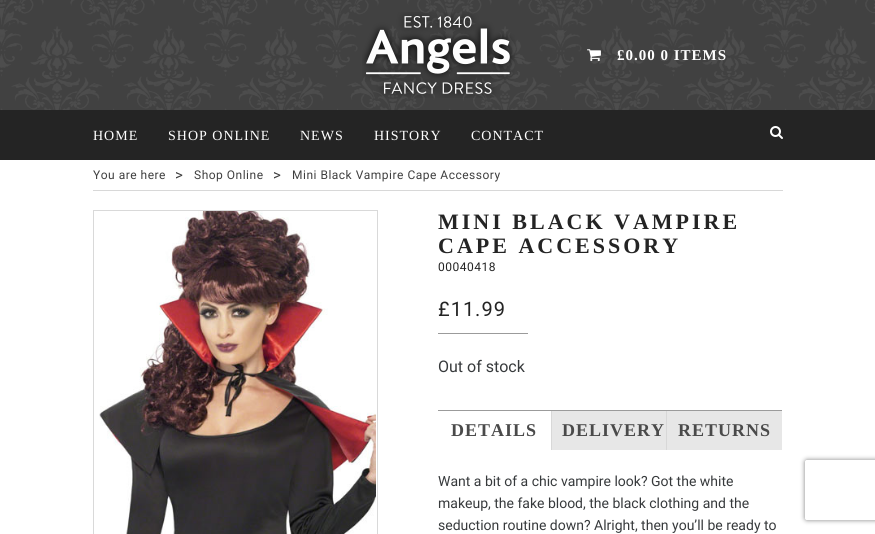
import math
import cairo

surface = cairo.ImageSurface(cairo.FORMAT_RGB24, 875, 534)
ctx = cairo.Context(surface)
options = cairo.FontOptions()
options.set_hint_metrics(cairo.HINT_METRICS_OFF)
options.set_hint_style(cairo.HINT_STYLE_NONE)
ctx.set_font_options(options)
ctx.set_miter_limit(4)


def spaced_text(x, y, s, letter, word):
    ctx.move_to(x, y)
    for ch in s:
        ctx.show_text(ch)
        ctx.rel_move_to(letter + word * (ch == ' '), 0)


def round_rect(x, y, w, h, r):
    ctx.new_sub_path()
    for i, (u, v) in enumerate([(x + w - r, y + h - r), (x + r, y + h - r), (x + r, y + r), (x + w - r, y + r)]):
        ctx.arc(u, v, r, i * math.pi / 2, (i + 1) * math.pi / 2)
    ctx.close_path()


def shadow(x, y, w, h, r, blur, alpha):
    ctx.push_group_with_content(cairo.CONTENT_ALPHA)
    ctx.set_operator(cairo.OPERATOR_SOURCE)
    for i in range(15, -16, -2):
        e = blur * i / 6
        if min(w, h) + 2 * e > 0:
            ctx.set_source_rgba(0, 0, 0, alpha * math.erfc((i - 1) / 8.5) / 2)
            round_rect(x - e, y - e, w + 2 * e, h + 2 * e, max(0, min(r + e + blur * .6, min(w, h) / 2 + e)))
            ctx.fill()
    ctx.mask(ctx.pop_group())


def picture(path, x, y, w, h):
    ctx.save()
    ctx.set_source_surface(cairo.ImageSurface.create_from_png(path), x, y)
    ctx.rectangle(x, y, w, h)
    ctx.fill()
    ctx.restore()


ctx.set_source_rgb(0.141, 0.141, 0.141)
ctx.paint()
picture("img1.png", 0, 0, 875, 110)
picture("img2.png", 362, 12, 153, 86)
picture("img3.png", 587, 49, 14, 13)
ctx.select_font_face("Liberation Serif", cairo.FONT_SLANT_NORMAL, cairo.FONT_WEIGHT_BOLD)
ctx.set_font_size(15)
ctx.set_source_rgb(1, 1, 1)
spaced_text(617, 60, "£0.00 0 ITEMS", 1, 0)
ctx.select_font_face("Liberation Serif")
ctx.set_font_size(14)
spaced_text(93, 140, "HOME", 1, 0)
spaced_text(168, 140, "SHOP ONLINE", 1, 0)
spaced_text(300, 140, "NEWS", 1, 0)
spaced_text(374, 140, "HISTORY", 1, 0)
spaced_text(471, 140, "CONTACT", 1, 0)
picture("img4.png", 770, 126, 13, 13)
ctx.rectangle(0, 160, 875, 374)
ctx.fill()
ctx.set_source_rgb(0.847, 0.847, 0.847)
ctx.rectangle(93, 190, 690, 1)
ctx.fill()
ctx.select_font_face("Roboto")
ctx.set_font_size(12)
ctx.set_source_rgb(0.247, 0.247, 0.247)
spaced_text(93, 179, "You are here", 0.5, 0)
ctx.set_font_size(15)
spaced_text(175, 180, ">", 0.5, 0)
ctx.set_font_size(12)
spaced_text(194, 179, "Shop Online", 0.5, 0)
ctx.set_font_size(15)
spaced_text(273, 180, ">", 0.5, 0)
ctx.set_font_size(12)
spaced_text(292, 179, "Mini Black Vampire Cape Accessory", 0.5, 0)
ctx.rectangle(93.5, 210.5, 284, 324)
ctx.set_source_rgb(0.851, 0.851, 0.851)
ctx.set_line_width(1)
ctx.stroke()
picture("img5.png", 99, 211, 277, 323)
ctx.select_font_face("Liberation Serif", cairo.FONT_SLANT_NORMAL, cairo.FONT_WEIGHT_BOLD)
ctx.set_font_size(22)
ctx.set_source_rgb(0.141, 0.141, 0.141)
spaced_text(438, 229, "MINI BLACK VAMPIRE", 3, 0)
spaced_text(438, 253, "CAPE ACCESSORY", 3, 0)
ctx.select_font_face("Roboto")
ctx.set_font_size(12)
spaced_text(438, 271, "00040418", 0.5, 0)
ctx.set_font_size(20)
spaced_text(438, 316, "£11.99", 1, 0)
ctx.set_source_rgb(0.608, 0.608, 0.608)
ctx.rectangle(438, 333, 90, 1)
ctx.fill()
ctx.set_font_size(16)
ctx.set_source_rgb(0.216, 0.227, 0.235)
ctx.move_to(438, 372)
ctx.show_text("Out of stock")
ctx.set_source_rgb(0.608, 0.608, 0.608)
ctx.rectangle(438, 410, 344, 1)
ctx.fill()
ctx.set_source_rgb(0.847, 0.847, 0.847)
ctx.rectangle(551, 411, 1, 39)
ctx.fill()
ctx.select_font_face("Liberation Serif", cairo.FONT_SLANT_NORMAL, cairo.FONT_WEIGHT_BOLD)
ctx.set_font_size(18)
ctx.set_source_rgb(0.29, 0.29, 0.29)
spaced_text(451, 436, "DETAILS", 1, 0)
ctx.set_source_rgb(0.906, 0.906, 0.906)
ctx.rectangle(552, 411, 114, 39)
ctx.fill()
ctx.set_source_rgb(0.847, 0.847, 0.847)
ctx.rectangle(666, 411, 1, 39)
ctx.fill()
ctx.set_source_rgb(0.29, 0.29, 0.29)
spaced_text(562, 436, "DELIVERY", 1, 0)
ctx.set_source_rgb(0.906, 0.906, 0.906)
ctx.rectangle(667, 411, 115, 39)
ctx.fill()
ctx.set_source_rgb(0.29, 0.29, 0.29)
spaced_text(678, 436, "RETURNS", 1, 0)
ctx.select_font_face("Roboto")
ctx.set_font_size(14)
ctx.set_source_rgb(0.216, 0.227, 0.235)
ctx.move_to(438, 486)
ctx.show_text("Want a bit of a chic vampire look? Got the white")
ctx.move_to(438, 508)
ctx.show_text("makeup, the fake blood, the black clothing and the")
ctx.move_to(438, 530)
ctx.show_text("seduction routine down? Alright, then you’ll be ready to")
ctx.save()
ctx.set_fill_rule(cairo.FILL_RULE_EVEN_ODD)
ctx.new_path()
ctx.move_to(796, 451)
ctx.line_to(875, 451)
ctx.line_to(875, 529)
ctx.line_to(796, 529)
ctx.close_path()
ctx.move_to(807, 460)
ctx.line_to(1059, 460)
ctx.curve_to(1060, 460, 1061, 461, 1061, 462)
ctx.line_to(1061, 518)
ctx.curve_to(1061, 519, 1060, 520, 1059, 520)
ctx.line_to(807, 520)
ctx.curve_to(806, 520, 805, 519, 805, 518)
ctx.line_to(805, 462)
ctx.curve_to(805, 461, 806, 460, 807, 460)
ctx.close_path()
ctx.clip()
ctx.set_source_rgb(0.502, 0.502, 0.502)
shadow(805, 460, 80, 60, 2, 2.5, 1)
ctx.restore()
surface.write_to_png("page.png")
